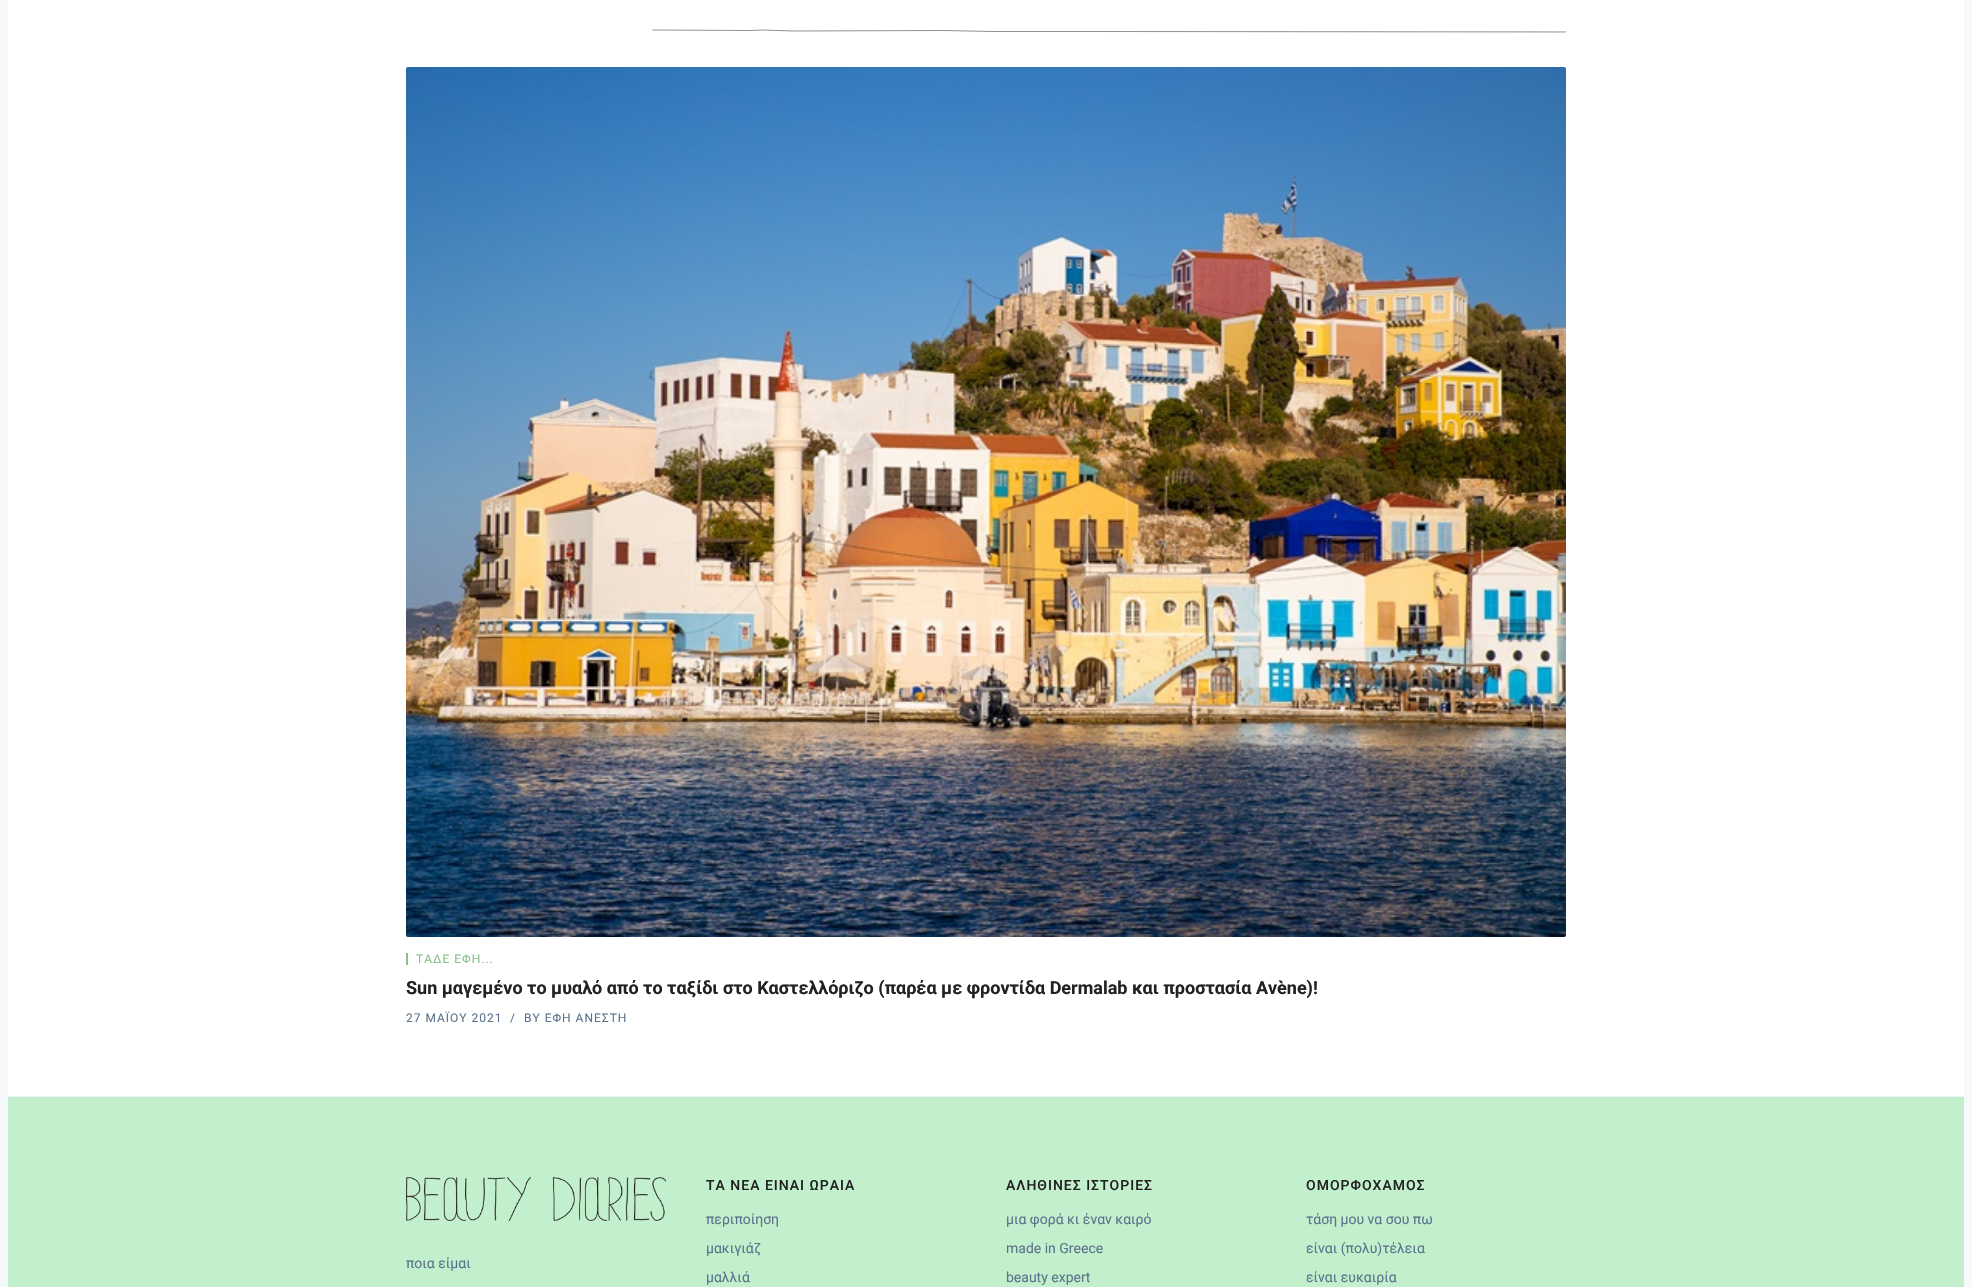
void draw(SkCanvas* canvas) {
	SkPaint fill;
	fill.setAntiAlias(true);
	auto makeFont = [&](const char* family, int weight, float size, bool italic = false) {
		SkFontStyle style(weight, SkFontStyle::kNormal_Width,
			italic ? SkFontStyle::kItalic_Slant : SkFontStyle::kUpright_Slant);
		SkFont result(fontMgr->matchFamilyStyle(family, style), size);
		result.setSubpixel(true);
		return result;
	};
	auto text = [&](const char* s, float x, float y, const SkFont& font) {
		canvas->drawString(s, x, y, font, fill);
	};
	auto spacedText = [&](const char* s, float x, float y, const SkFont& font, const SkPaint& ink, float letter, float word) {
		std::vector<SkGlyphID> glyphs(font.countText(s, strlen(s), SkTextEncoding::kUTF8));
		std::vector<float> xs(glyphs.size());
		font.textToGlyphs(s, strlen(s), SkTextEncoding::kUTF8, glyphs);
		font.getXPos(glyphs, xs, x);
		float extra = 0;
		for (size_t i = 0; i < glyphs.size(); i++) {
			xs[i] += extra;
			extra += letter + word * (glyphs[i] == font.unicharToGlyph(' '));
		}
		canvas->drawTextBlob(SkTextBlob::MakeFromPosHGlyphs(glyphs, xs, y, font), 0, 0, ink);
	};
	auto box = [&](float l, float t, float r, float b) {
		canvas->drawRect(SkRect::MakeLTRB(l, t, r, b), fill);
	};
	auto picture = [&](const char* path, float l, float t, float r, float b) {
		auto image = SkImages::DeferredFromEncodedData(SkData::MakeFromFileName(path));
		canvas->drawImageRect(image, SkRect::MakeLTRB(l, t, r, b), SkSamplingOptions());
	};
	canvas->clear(0xFFFFFFFF);
	fill.setStyle(SkPaint::kStroke_Style);
	fill.setStrokeWidth(8);
	fill.setColor(0xFFF6F9FC);
	canvas->drawRect(SkRect::MakeLTRB(4, -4, 1968, 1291), fill);
	canvas->save();
	canvas->clipRect(SkRect::MakeLTRB(632, 25, 1566, 35));
	fill.setStrokeWidth(0.5f);
	fill.setColor(0xFF231F20);
	canvas->drawPath(SkPathBuilder().moveTo(652.5f, 30).lineTo(750.5f, 30.5f).lineTo(762, 30).lineTo(793, 31).lineTo(943.5f, 30.5f).lineTo(992, 31.5f).lineTo(1094, 31.5f).lineTo(1612.5f, 32).detach(), fill);
	canvas->restore();
	fill.setStyle(SkPaint::kFill_Style);
	fill.setColor(0xFFF6F9FC);
	box(406, 67, 1566, 937);
	picture("image0.png", 406, 67, 1566, 937);
	fill.setColor(0xFF8BBF8B);
	box(406, 953, 408, 965);
	fill.setColor(0xFFC2EFCC);
	box(8, 1097, 1964, 1287);
	fill.setColor(0xFFEBF1F8);
	box(8, 1096, 1964, 1097);
	picture("image1.png", 406, 1177, 666, 1221);
	auto font1 = makeFont("Roboto", 400, 12);
	fill.setColor(0xFF8BBF8B);
	spacedText("ΤΑΔΕ ΕΦΗ...", 416, 963, font1, fill, 1, 0);
	auto font2 = makeFont("Roboto", 700, 18);
	fill.setColor(0xFF222222);
	text("Sun μαγεμένο το μυαλό από το ταξίδι στο Καστελλόριζο (παρέα με φροντίδα Dermalab και προστασία Avène)!", 406, 994, font2);
	fill.setColor(0xFF5D738D);
	spacedText("27 ΜΑΪΟΥ 2021", 406, 1022, font1, fill, 1, 0);
	spacedText("/", 510, 1022, font1, fill, 1, 0);
	spacedText("BY ΕΦΗ ΑΝΕΣΤΗ", 524, 1022, font1, fill, 1, 0);
	auto font3 = makeFont("Roboto", 400, 14);
	text("ποια είμαι", 406, 1268, font3);
	auto font4 = makeFont("Roboto", 500, 14);
	fill.setColor(0xFF222222);
	spacedText("ΤΑ ΝΕΑ ΕΙΝΑΙ ΩΡΑΙΑ", 706, 1190, font4, fill, 1, 0);
	fill.setColor(0xFF5D738D);
	text("περιποίηση", 706, 1224, font3);
	text("μακιγιάζ", 706, 1253, font3);
	text("μαλλιά", 706, 1282, font3);
	fill.setColor(0xFF222222);
	spacedText("ΑΛΗΘΙΝΕΣ ΙΣΤΟΡΙΕΣ", 1006, 1190, font4, fill, 1, 0);
	fill.setColor(0xFF5D738D);
	text("μια φορά κι έναν καιρό", 1006, 1224, font3);
	text("made in Greece", 1006, 1253, font3);
	text("beauty expert", 1006, 1282, font3);
	fill.setColor(0xFF222222);
	spacedText("ΟΜΟΡΦΟΧΑΜΟΣ", 1306, 1190, font4, fill, 1, 0);
	fill.setColor(0xFF5D738D);
	text("τάση μου να σου πω", 1306, 1224, font3);
	text("είναι (πολυ)τέλεια", 1306, 1253, font3);
	text("είναι ευκαιρία", 1306, 1282, font3);
}
